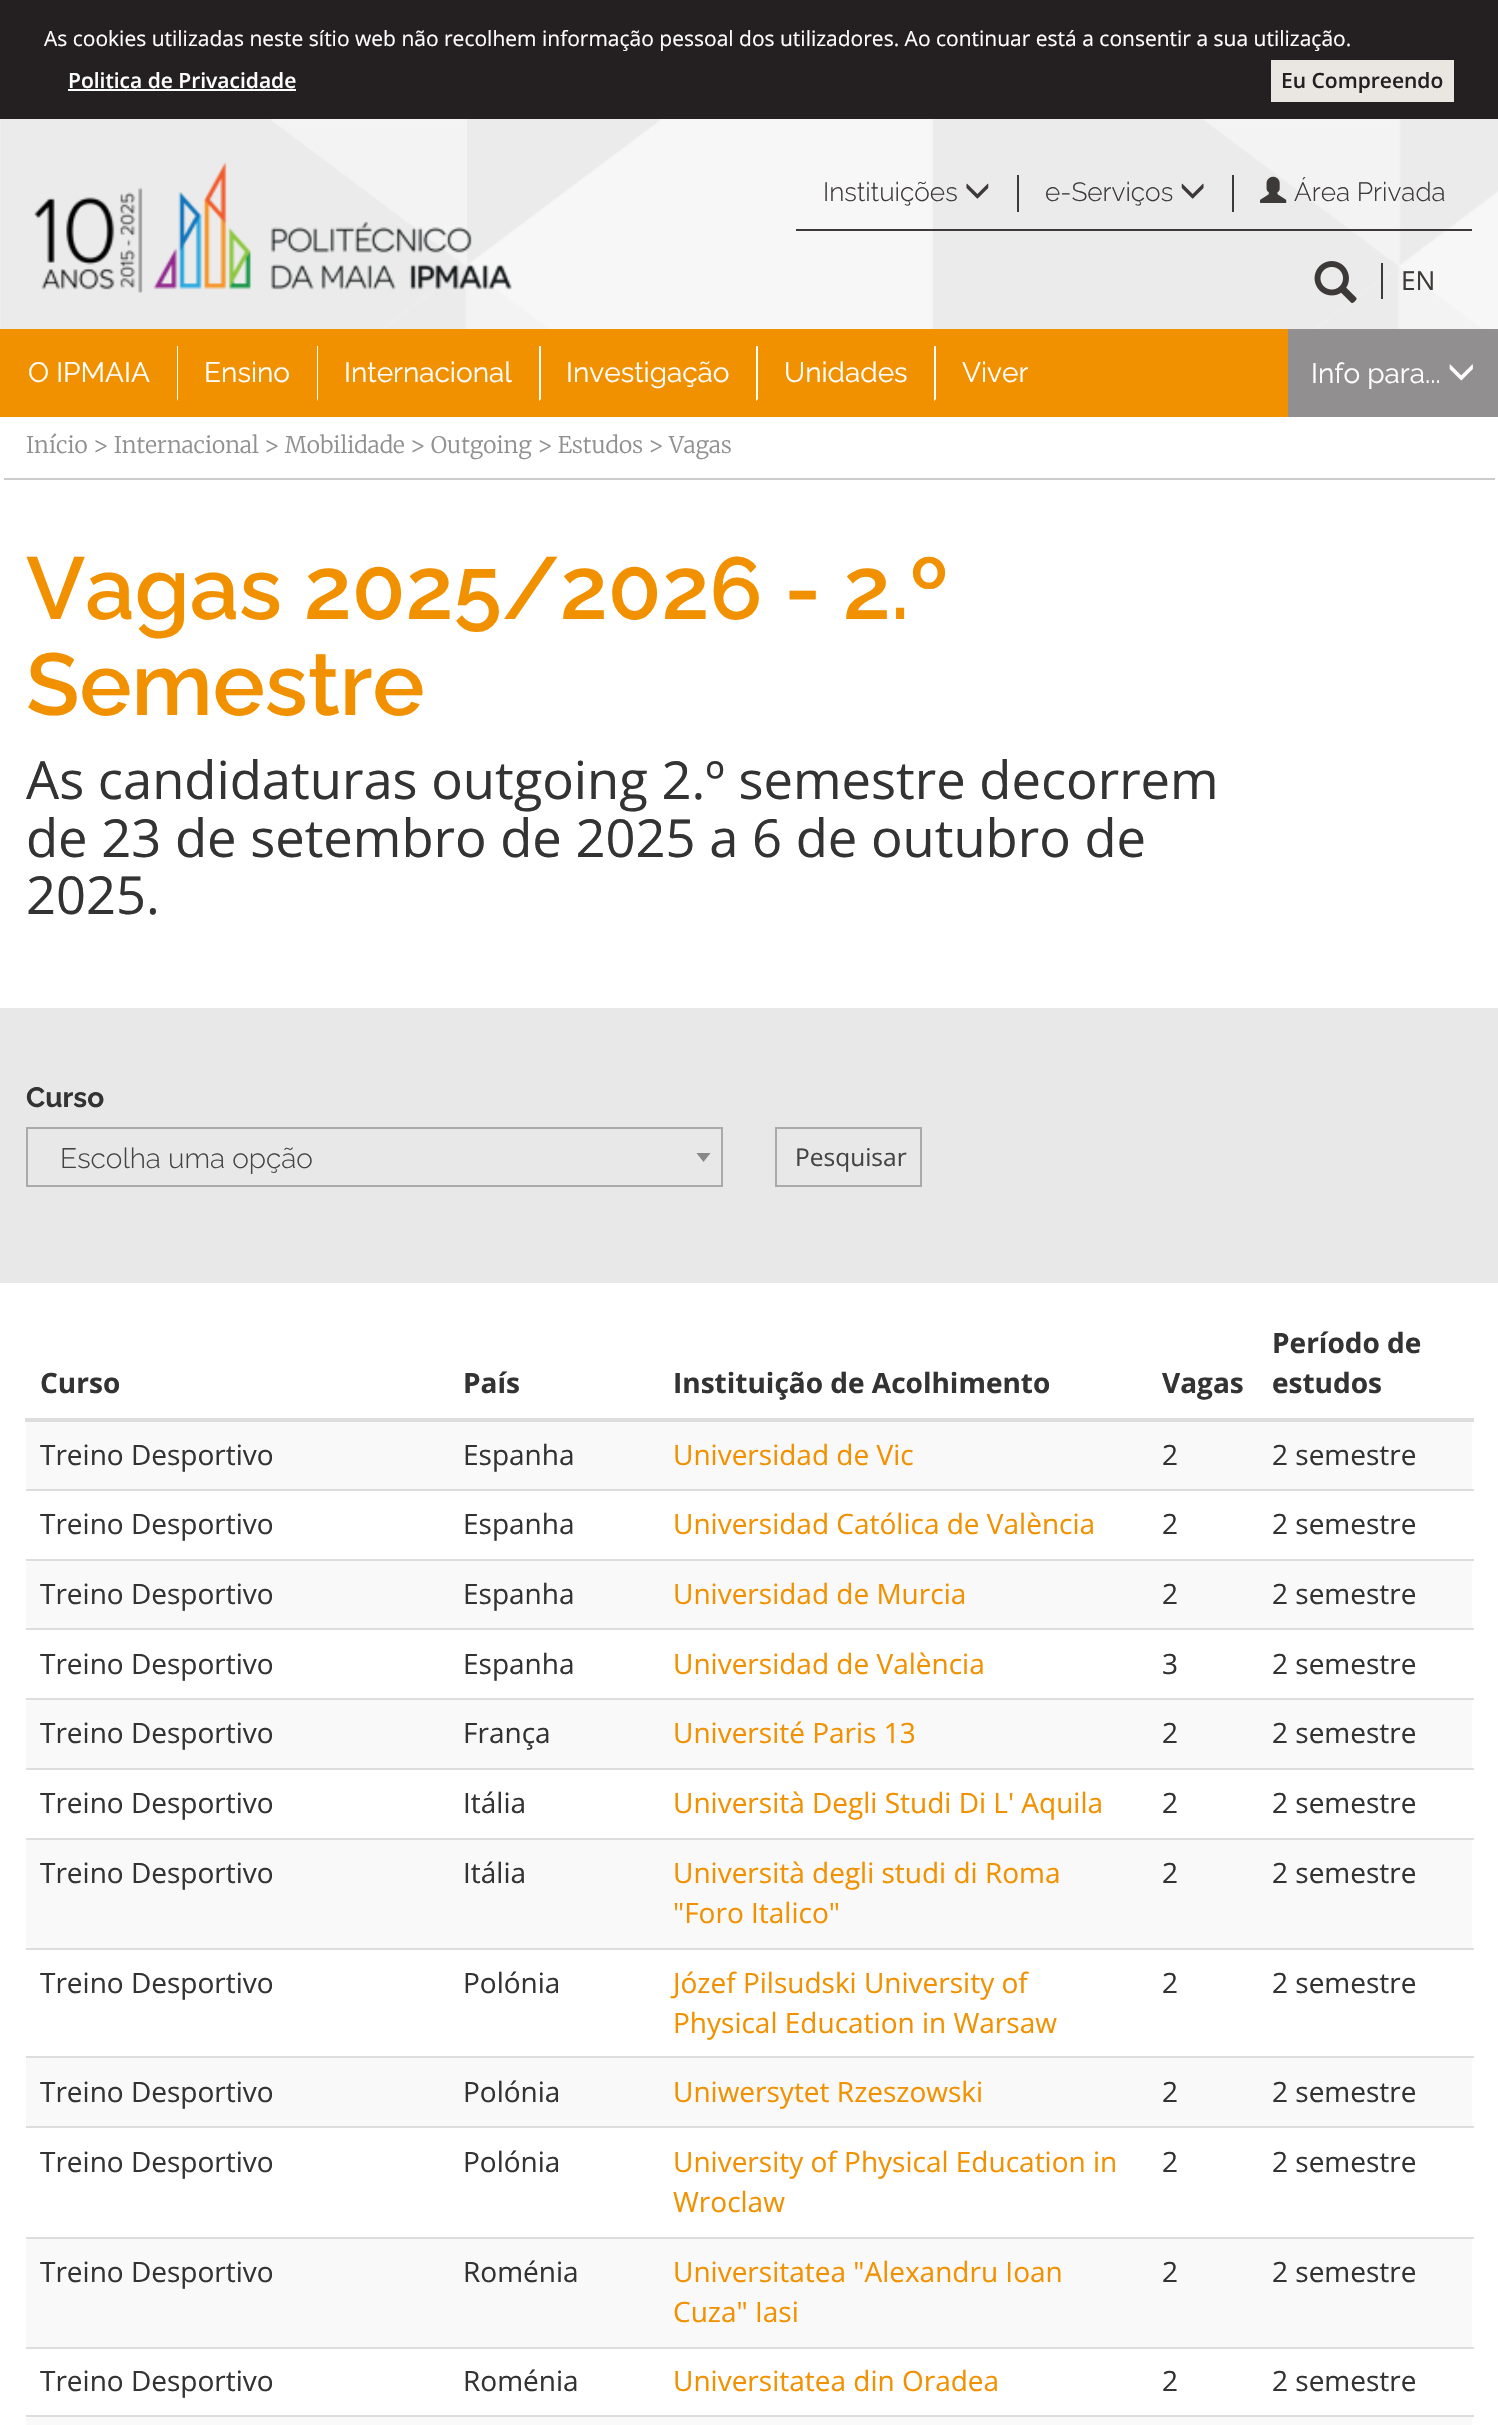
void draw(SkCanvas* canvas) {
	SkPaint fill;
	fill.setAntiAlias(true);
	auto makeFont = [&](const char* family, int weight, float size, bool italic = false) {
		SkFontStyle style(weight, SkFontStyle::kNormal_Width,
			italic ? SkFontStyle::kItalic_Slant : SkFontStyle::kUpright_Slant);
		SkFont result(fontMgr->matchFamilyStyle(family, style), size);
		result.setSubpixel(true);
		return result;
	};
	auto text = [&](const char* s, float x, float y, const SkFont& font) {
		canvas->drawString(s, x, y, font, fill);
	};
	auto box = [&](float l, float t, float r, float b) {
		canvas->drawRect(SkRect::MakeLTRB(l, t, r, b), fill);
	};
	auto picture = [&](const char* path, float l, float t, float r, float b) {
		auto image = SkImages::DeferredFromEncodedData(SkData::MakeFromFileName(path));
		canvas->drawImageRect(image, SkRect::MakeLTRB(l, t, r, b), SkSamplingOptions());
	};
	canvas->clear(0xFFFFFFFF);
	fill.setColor(0xFF242021);
	box(0, 0, 1498, 119);
	fill.setColor(0xFFFFFFFF);
	box(68, 89, 296, 91);
	fill.setColor(0xFFEAE7E3);
	box(1271, 60, 1454, 102);
	picture("image0.png", 0, 119, 1498, 329);
	picture("image1.png", 34, 162, 512, 293);
	fill.setColor(0xFF3D3938);
	box(796, 229, 1472, 231);
	box(1017, 175, 1019, 212);
	picture("image2.png", 966, 183, 989, 199);
	box(1232, 175, 1234, 212);
	picture("image3.png", 1181, 183, 1204, 199);
	picture("image4.png", 1260, 176, 1287, 203);
	picture("image5.png", 1314, 261, 1357, 303);
	box(1381, 263, 1383, 299);
	fill.setColor(0xFFF29100);
	box(0, 329, 1288, 417);
	fill.setColor(0xFFFFFFFF);
	canvas->drawPath(SkPathBuilder().moveTo(177, 401).lineTo(177, 346).lineTo(178, 346).lineTo(178, 399).close().detach(), fill);
	canvas->drawPath(SkPathBuilder().moveTo(317, 401).lineTo(317, 346).lineTo(318, 346).lineTo(318, 399).close().detach(), fill);
	canvas->drawPath(SkPathBuilder().moveTo(539, 401).lineTo(539, 346).lineTo(541, 346).lineTo(541, 399).close().detach(), fill);
	canvas->drawPath(SkPathBuilder().moveTo(756, 401).lineTo(756, 346).lineTo(758, 346).lineTo(758, 399).close().detach(), fill);
	canvas->drawPath(SkPathBuilder().moveTo(934, 401).lineTo(934, 346).lineTo(936, 346).lineTo(936, 399).close().detach(), fill);
	fill.setColor(0xFF918F8F);
	box(1288, 329, 1498, 417);
	picture("image6.png", 1449, 364, 1473, 381);
	fill.setColor(0xFFCCCCCC);
	box(4, 478, 1495, 480);
	fill.setColor(0xFFE9E8E8);
	box(0, 1008, 1498, 1283);
	fill.setStyle(SkPaint::kStroke_Style);
	fill.setStrokeWidth(2);
	fill.setColor(0xFFAAAAAA);
	canvas->drawRect(SkRect::MakeLTRB(27, 1128, 722, 1186), fill);
	fill.setStyle(SkPaint::kFill_Style);
	fill.setColor(0xFF888888);
	canvas->drawPath(SkPathBuilder().moveTo(696.5f, 1153).lineTo(710.5f, 1153).lineTo(703.5f, 1162).close().detach(), fill);
	fill.setStyle(SkPaint::kStroke_Style);
	fill.setColor(0xFFAAAAAA);
	canvas->drawRect(SkRect::MakeLTRB(776, 1128, 921, 1186), fill);
	fill.setStyle(SkPaint::kFill_Style);
	fill.setColor(0xFFDDDDDD);
	box(25, 1418, 1474, 1422);
	fill.setColor(0xFFF9F9F9);
	box(26, 1422, 1472, 1489);
	fill.setColor(0xFFDDDDDD);
	box(26, 1489, 1474, 1491);
	fill.setColor(0xFFF9F9F9);
	box(26, 1561, 1472, 1628);
	fill.setColor(0xFFDDDDDD);
	box(26, 1559, 1474, 1561);
	box(26, 1628, 1474, 1630);
	fill.setColor(0xFFF9F9F9);
	box(26, 1700, 1472, 1768);
	fill.setColor(0xFFDDDDDD);
	box(26, 1698, 1474, 1700);
	box(26, 1768, 1474, 1770);
	fill.setColor(0xFFF9F9F9);
	box(26, 1840, 1472, 1948);
	fill.setColor(0xFFDDDDDD);
	box(26, 1838, 1474, 1840);
	box(26, 1948, 1474, 1950);
	fill.setColor(0xFFF9F9F9);
	box(26, 2058, 1472, 2126);
	fill.setColor(0xFFDDDDDD);
	box(26, 2056, 1474, 2058);
	box(26, 2126, 1474, 2128);
	fill.setColor(0xFFF9F9F9);
	box(26, 2239, 1472, 2347);
	fill.setColor(0xFFDDDDDD);
	box(26, 2237, 1474, 2239);
	box(26, 2347, 1474, 2349);
	fill.setColor(0xFFF9F9F9);
	box(26, 2417, 1472, 2425);
	fill.setColor(0xFFDDDDDD);
	box(26, 2415, 1474, 2417);
	auto font1 = makeFont("Open Sans", 400, 21);
	fill.setColor(0xFFFFFFFF);
	text("As cookies utilizadas neste sítio web não recolhem informação pessoal dos utilizadores. Ao continuar está a consentir a sua utilização.", 44, 46, font1);
	auto font2 = makeFont("Open Sans", 600, 21);
	text("Politica de Privacidade", 68, 88, font2);
	fill.setColor(0xFF242021);
	text("Eu Compreendo", 1281, 88, font2);
	auto font3 = makeFont("Raleway", 300, 26.25f);
	fill.setColor(0xFF3D3938);
	text("Instituições", 823, 201, font3);
	text("e-Serviços", 1045, 201, font3);
	text("Área Privada", 1294, 201, font3);
	auto font4 = makeFont("Open Sans", 400, 26.25f);
	text("EN", 1401, 290, font4);
	auto font5 = makeFont("Raleway", 400, 28);
	fill.setColor(0xFFFFFFFF);
	text("O IPMAIA", 28, 382, font5);
	text("Ensino", 204, 382, font5);
	text("Internacional", 344, 382, font5);
	text("Investigação", 566, 382, font5);
	text("Unidades", 784, 382, font5);
	text("Viver", 962, 382, font5);
	text("Info para...", 1311, 383, font5);
	auto font6 = makeFont("Merriweather", 300, 22.75f);
	fill.setColor(0xFF918F8F);
	text("Início > Internacional > Mobilidade > Outgoing > Estudos > Vagas", 26, 453, font6);
	auto font7 = makeFont("Raleway", 600, 87.5f);
	fill.setColor(0xFFF29100);
	text("Vagas 2025/2026 - 2.º", 26, 619, font7);
	text("Semestre", 26, 715, font7);
	auto font8 = makeFont("Open Sans", 400, 52.5f);
	fill.setColor(0xFF333333);
	text("As candidaturas outgoing 2.º semestre decorrem", 26, 799, font8);
	text("de 23 de setembro de 2025 a 6 de outubro de", 26, 857, font8);
	text("2025.", 26, 914, font8);
	auto font9 = makeFont("Raleway", 700, 28);
	text("Curso", 26, 1107, font9);
	auto font10 = makeFont("Raleway", 300, 28);
	fill.setColor(0xFF444444);
	text("Escolha uma opção", 60, 1168, font10);
	auto font11 = makeFont("Open Sans", 400, 24.5f);
	text("Pesquisar", 795, 1166, font11);
	auto font12 = makeFont("Open Sans", 700, 28);
	fill.setColor(0xFF333333);
	text("Curso", 40, 1393, font12);
	text("País", 463, 1393, font12);
	text("Instituição de Acolhimento", 673, 1393, font12);
	text("Vagas", 1162, 1393, font12);
	text("Período de", 1272, 1353, font12);
	text("estudos", 1272, 1393, font12);
	auto font13 = makeFont("Open Sans", 400, 28);
	text("Treino Desportivo", 40, 1465, font13);
	text("Espanha", 463, 1465, font13);
	fill.setColor(0xFFF29100);
	text("Universidad de Vic", 673, 1465, font13);
	fill.setColor(0xFF333333);
	text("2", 1162, 1465, font13);
	text("2 semestre", 1272, 1465, font13);
	text("Treino Desportivo", 40, 1534, font13);
	text("Espanha", 463, 1534, font13);
	fill.setColor(0xFFF29100);
	text("Universidad Católica de València", 673, 1534, font13);
	fill.setColor(0xFF333333);
	text("2", 1162, 1534, font13);
	text("2 semestre", 1272, 1534, font13);
	text("Treino Desportivo", 40, 1604, font13);
	text("Espanha", 463, 1604, font13);
	fill.setColor(0xFFF29100);
	text("Universidad de Murcia", 673, 1604, font13);
	fill.setColor(0xFF333333);
	text("2", 1162, 1604, font13);
	text("2 semestre", 1272, 1604, font13);
	text("Treino Desportivo", 40, 1674, font13);
	text("Espanha", 463, 1674, font13);
	fill.setColor(0xFFF29100);
	text("Universidad de València", 673, 1674, font13);
	fill.setColor(0xFF333333);
	text("3", 1162, 1674, font13);
	text("2 semestre", 1272, 1674, font13);
	text("Treino Desportivo", 40, 1743, font13);
	text("França", 463, 1743, font13);
	fill.setColor(0xFFF29100);
	text("Université Paris 13", 673, 1743, font13);
	fill.setColor(0xFF333333);
	text("2", 1162, 1743, font13);
	text("2 semestre", 1272, 1743, font13);
	text("Treino Desportivo", 40, 1813, font13);
	text("Itália", 463, 1813, font13);
	fill.setColor(0xFFF29100);
	text("Università Degli Studi Di L' Aquila", 673, 1813, font13);
	fill.setColor(0xFF333333);
	text("2", 1162, 1813, font13);
	text("2 semestre", 1272, 1813, font13);
	text("Treino Desportivo", 40, 1883, font13);
	text("Itália", 463, 1883, font13);
	fill.setColor(0xFFF29100);
	text("Università degli studi di Roma", 673, 1883, font13);
	text("\"Foro Italico\"", 673, 1923, font13);
	fill.setColor(0xFF333333);
	text("2", 1162, 1883, font13);
	text("2 semestre", 1272, 1883, font13);
	text("Treino Desportivo", 40, 1993, font13);
	text("Polónia", 463, 1993, font13);
	fill.setColor(0xFFF29100);
	text("Józef Pilsudski University of", 673, 1993, font13);
	text("Physical Education in Warsaw", 673, 2033, font13);
	fill.setColor(0xFF333333);
	text("2", 1162, 1993, font13);
	text("2 semestre", 1272, 1993, font13);
	text("Treino Desportivo", 40, 2102, font13);
	text("Polónia", 463, 2102, font13);
	fill.setColor(0xFFF29100);
	text("Uniwersytet Rzeszowski", 673, 2102, font13);
	fill.setColor(0xFF333333);
	text("2", 1162, 2102, font13);
	text("2 semestre", 1272, 2102, font13);
	text("Treino Desportivo", 40, 2172, font13);
	text("Polónia", 463, 2172, font13);
	fill.setColor(0xFFF29100);
	text("University of Physical Education in", 673, 2172, font13);
	text("Wroclaw", 673, 2212, font13);
	fill.setColor(0xFF333333);
	text("2", 1162, 2172, font13);
	text("2 semestre", 1272, 2172, font13);
	text("Treino Desportivo", 40, 2282, font13);
	text("Roménia", 463, 2282, font13);
	fill.setColor(0xFFF29100);
	text("Universitatea \"Alexandru Ioan", 673, 2282, font13);
	text("Cuza\" Iasi", 673, 2322, font13);
	fill.setColor(0xFF333333);
	text("2", 1162, 2282, font13);
	text("2 semestre", 1272, 2282, font13);
	text("Treino Desportivo", 40, 2391, font13);
	text("Roménia", 463, 2391, font13);
	fill.setColor(0xFFF29100);
	text("Universitatea din Oradea", 673, 2391, font13);
	fill.setColor(0xFF333333);
	text("2", 1162, 2391, font13);
	text("2 semestre", 1272, 2391, font13);
}
